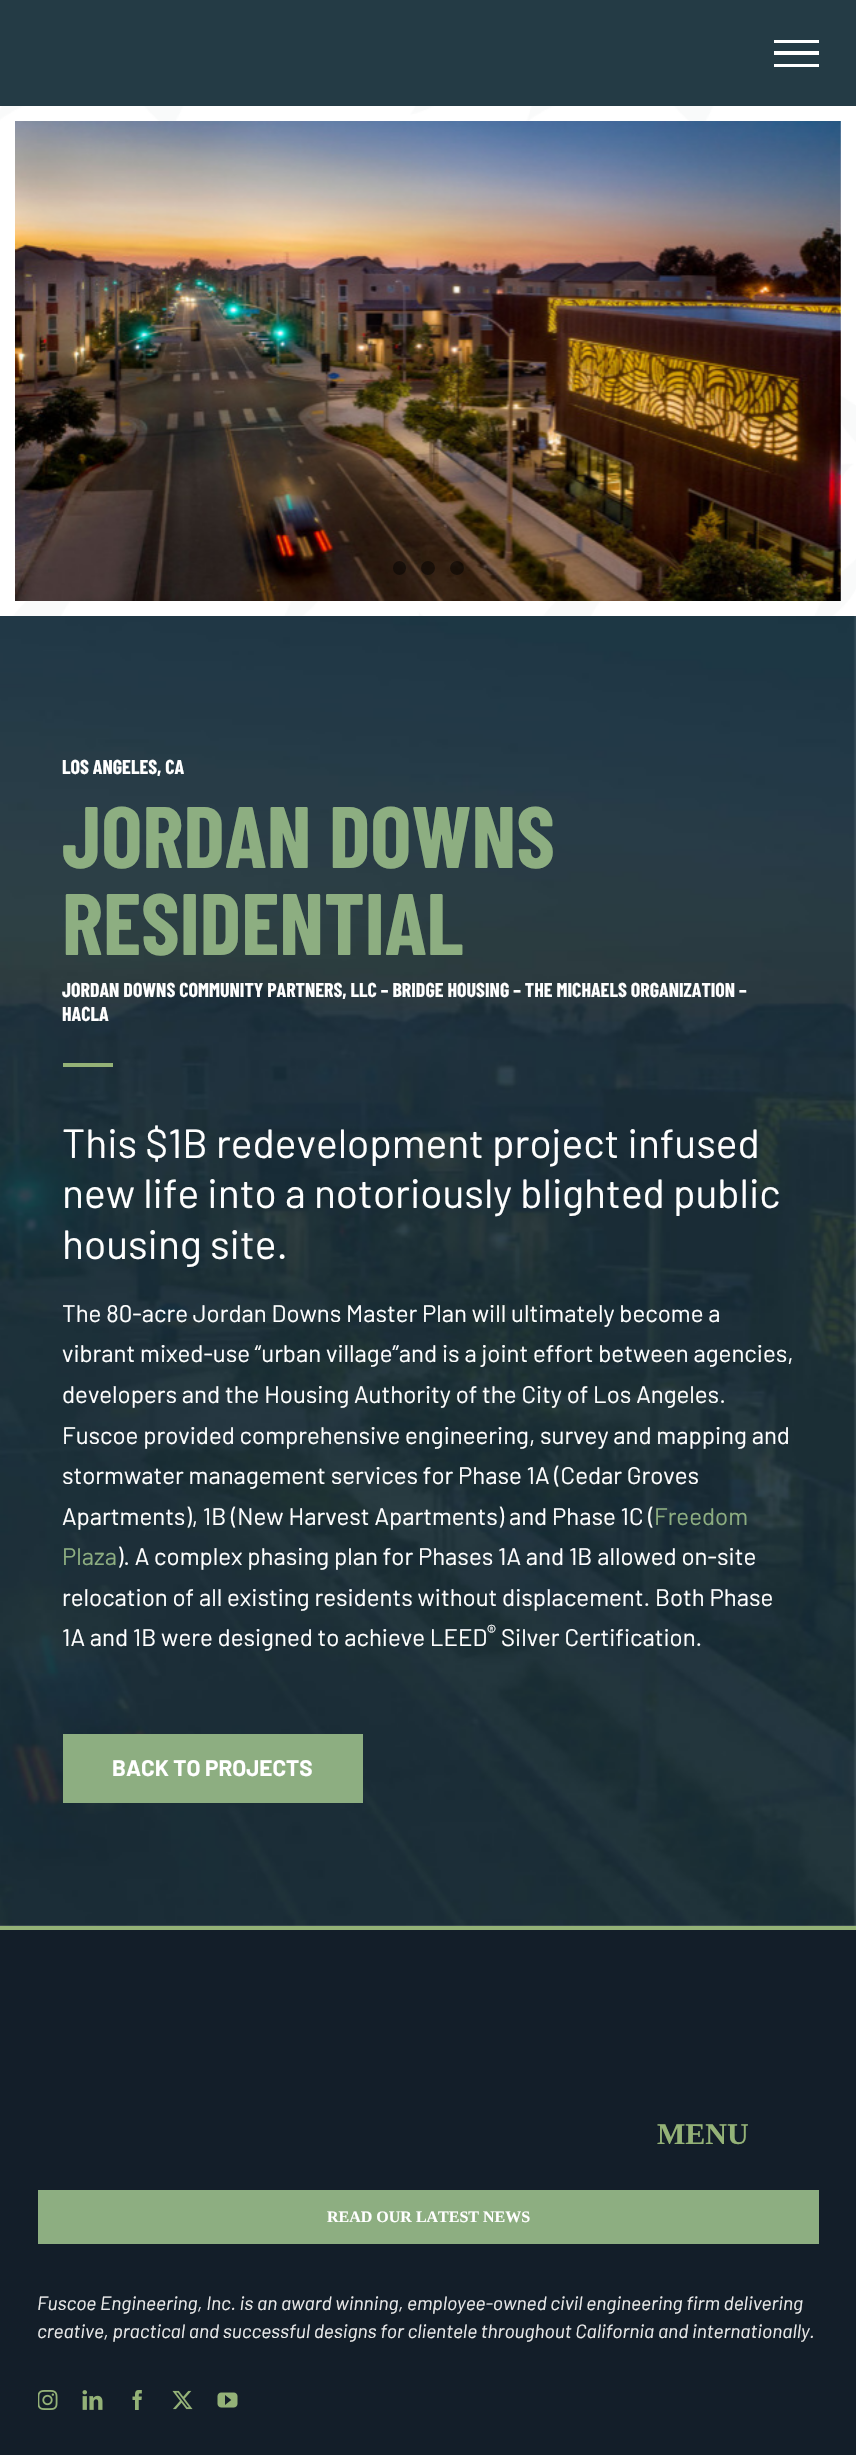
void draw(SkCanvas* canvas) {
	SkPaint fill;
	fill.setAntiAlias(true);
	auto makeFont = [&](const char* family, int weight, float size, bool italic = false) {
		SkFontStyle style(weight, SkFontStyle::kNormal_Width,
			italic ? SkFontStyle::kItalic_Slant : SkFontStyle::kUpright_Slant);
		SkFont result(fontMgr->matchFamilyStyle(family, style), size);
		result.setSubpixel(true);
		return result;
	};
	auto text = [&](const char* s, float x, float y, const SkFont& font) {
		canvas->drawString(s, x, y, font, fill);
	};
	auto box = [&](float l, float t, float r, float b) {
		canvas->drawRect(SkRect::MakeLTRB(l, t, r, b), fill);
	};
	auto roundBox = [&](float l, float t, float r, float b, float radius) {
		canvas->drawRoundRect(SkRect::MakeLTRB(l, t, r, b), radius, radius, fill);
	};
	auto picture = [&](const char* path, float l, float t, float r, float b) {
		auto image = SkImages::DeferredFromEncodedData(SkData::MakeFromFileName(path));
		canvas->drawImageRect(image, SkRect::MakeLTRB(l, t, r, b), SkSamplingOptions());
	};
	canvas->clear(0xFFFFFFFF);
	picture("image0.png", 0, 0, 856, 1926);
	fill.setColor(0xF218303B);
	box(0, 0, 856, 106);
	fill.setColor(0xFFFFFFFF);
	box(774, 40, 819, 43);
	box(774, 51, 819, 55);
	box(774, 64, 819, 67);
	picture("image1.png", 15, 121, 841, 601);
	fill.setColor(0x80000000);
	roundBox(393, 561, 406, 575, 6.5f);
	canvas->drawCircle(428, 568, 7, fill);
	canvas->drawCircle(457, 568, 7, fill);
	picture("image2.png", 0, 616, 856, 1926);
	fill.setColor(0xFF94B277);
	box(63, 1063, 113, 1067);
	fill.setColor(0xFF8DAE81);
	box(63, 1734, 363, 1803);
	fill.setColor(0xFF131E29);
	box(0, 1930, 856, 2455);
	fill.setColor(0xFF94B277);
	box(0, 1926, 856, 1930);
	fill.setColor(0xFF8DAE81);
	box(38, 2190, 819, 2244);
	picture("image3.png", 38, 2390, 58, 2410);
	picture("image4.png", 82, 2390, 103, 2410);
	picture("image5.png", 132, 2390, 142, 2410);
	picture("image6.png", 172, 2390, 193, 2410);
	picture("image7.png", 217, 2392, 238, 2408);
	auto font1 = makeFont("Barlow Condensed", 700, 20);
	fill.setColor(0xFFFFFFFF);
	text("LOS ANGELES, CA", 62, 774, font1);
	auto font2 = makeFont("Barlow Condensed", 700, 87);
	fill.setColor(0xFF8DAE81);
	text("JORDAN DOWNS", 62, 868, font2);
	text("RESIDENTIAL", 62, 955, font2);
	fill.setColor(0xFFFFFFFF);
	text("JORDAN DOWNS COMMUNITY PARTNERS, LLC – BRIDGE HOUSING – THE MICHAELS ORGANIZATION –", 62, 997, font1);
	text("HACLA", 62, 1021, font1);
	auto font3 = makeFont("Barlow", 400, 40.75f);
	text("This $1B redevelopment project infused", 62, 1158, font3);
	text("new life into a notoriously blighted public", 62, 1208, font3);
	text("housing site.", 62, 1259, font3);
	auto font4 = makeFont("Barlow", 400, 24);
	text("The 80-acre Jordan Downs Master Plan will ultimately become a", 62, 1322, font4);
	text("vibrant mixed-use “urban village”and is a joint effort between agencies,", 62, 1362, font4);
	text("developers and the Housing Authority of the City of Los Angeles.", 62, 1403, font4);
	text("Fuscoe provided comprehensive engineering, survey and mapping and", 62, 1444, font4);
	text("stormwater management services for Phase 1A (Cedar Groves", 62, 1484, font4);
	text("Apartments), 1B (New Harvest Apartments) and Phase 1C (", 62, 1525, font4);
	fill.setColor(0xFF8DAE81);
	text("Freedom", 654, 1525, font4);
	text("Plaza", 62, 1565, font4);
	fill.setColor(0xFFFFFFFF);
	text("). A complex phasing plan for Phases 1A and 1B allowed on-site", 117, 1565, font4);
	text("relocation of all existing residents without displacement. Both Phase", 62, 1606, font4);
	text("1A and 1B were designed to achieve LEED", 62, 1646, font4);
	auto font5 = makeFont("Barlow", 400, 20);
	text("®", 487, 1639, font5);
	text("Silver Certification.", 501, 1646, font4);
	auto font6 = makeFont("Barlow", 700, 22.5f);
	text("BACK TO PROJECTS", 112, 1776, font6);
	auto font7 = makeFont("Liberation Serif", 700, 30);
	fill.setColor(0xFF94B277);
	text("MENU", 657, 2144, font7);
	auto font8 = makeFont("Liberation Serif", 700, 16);
	fill.setColor(0xFFFFFFFF);
	text("READ OUR LATEST NEWS", 327, 2222, font8);
	auto font9 = makeFont("Barlow", 400, 19.2f, true);
	fill.setColor(0xFFEAEAEA);
	text("Fuscoe Engineering, Inc. is an award winning, employee-owned civil engineering firm delivering", 37, 2310, font9);
	text("creative, practical and successful designs for clientele throughout California and internationally.", 37, 2338, font9);
}
